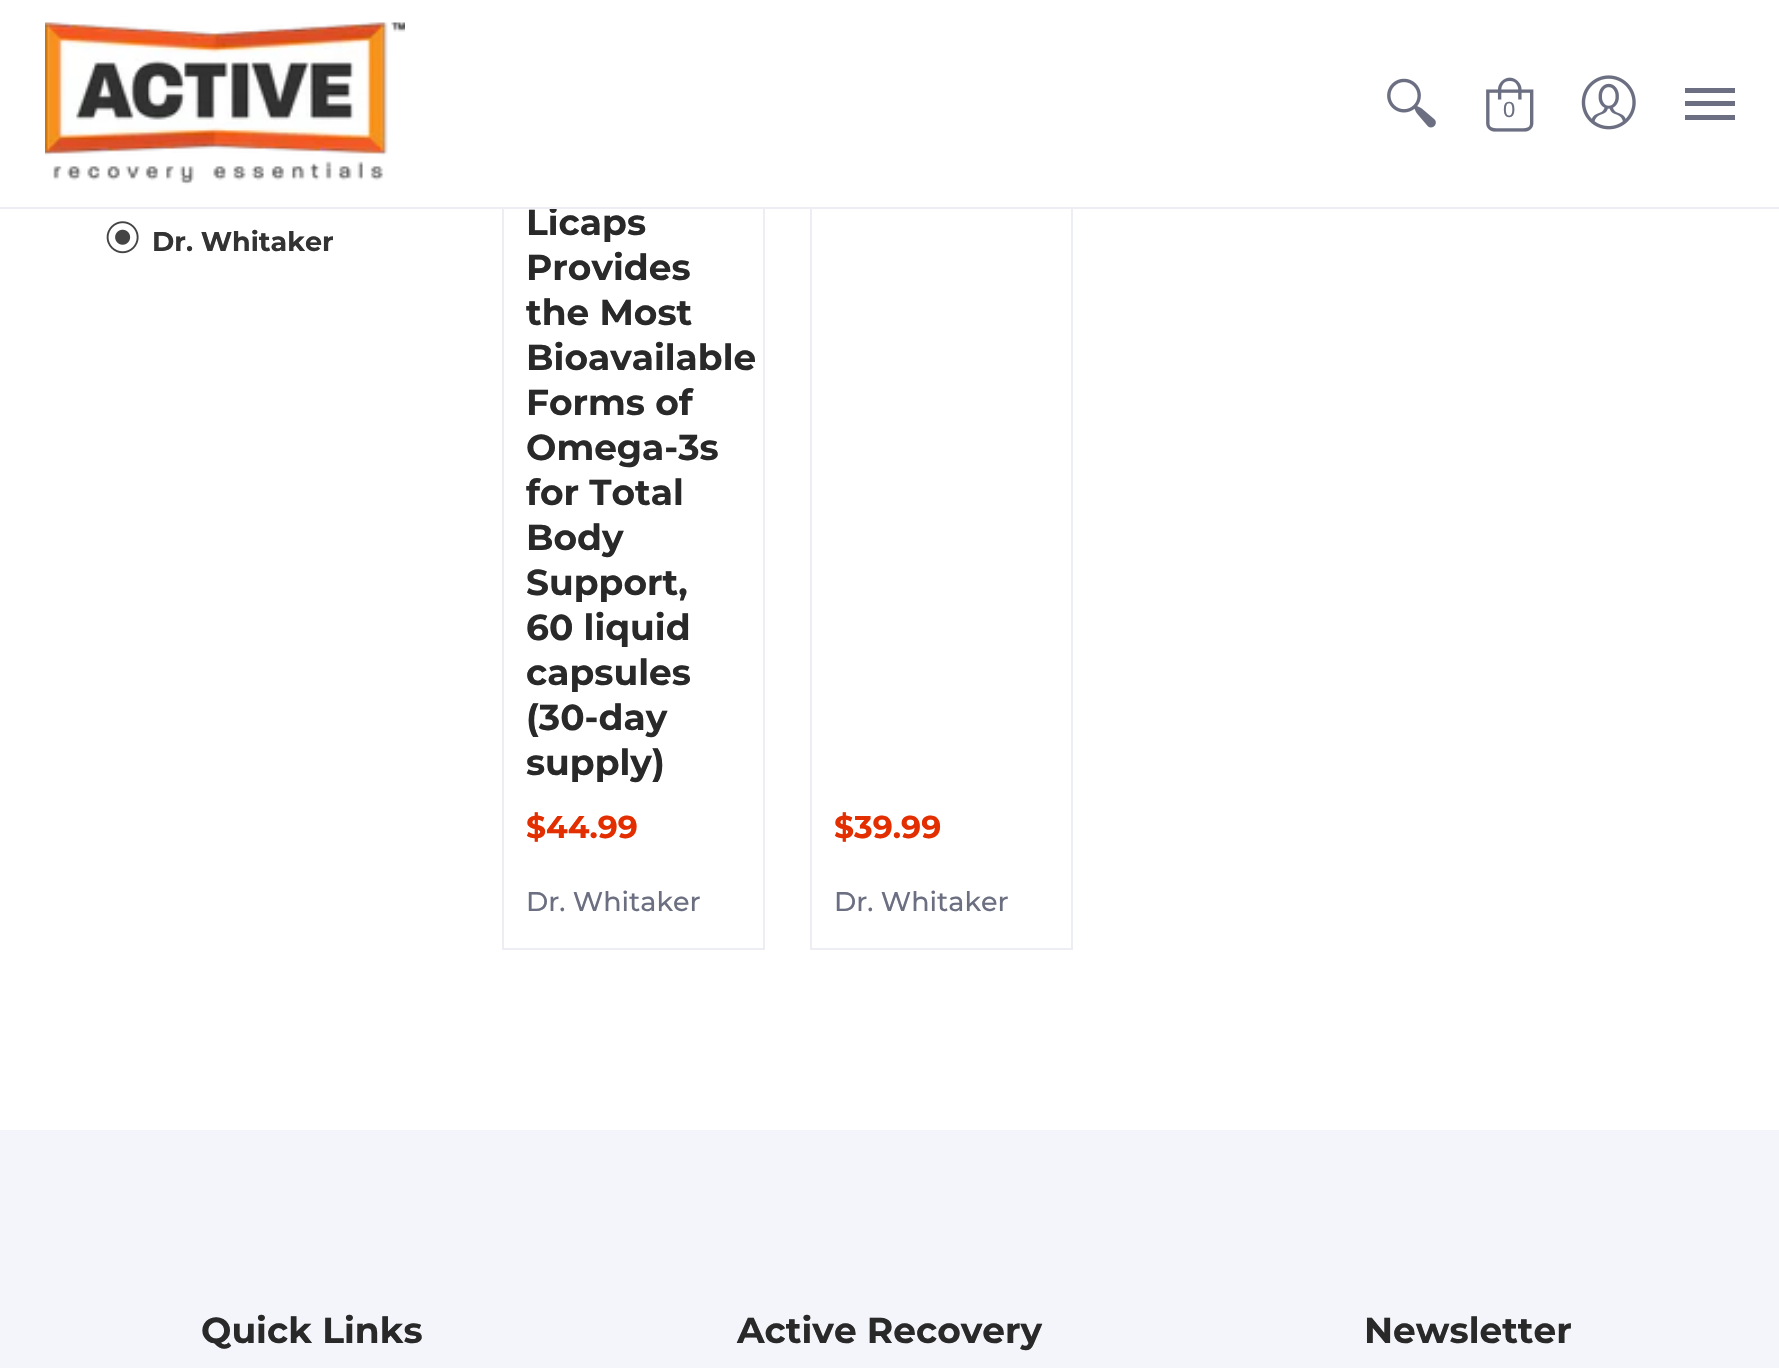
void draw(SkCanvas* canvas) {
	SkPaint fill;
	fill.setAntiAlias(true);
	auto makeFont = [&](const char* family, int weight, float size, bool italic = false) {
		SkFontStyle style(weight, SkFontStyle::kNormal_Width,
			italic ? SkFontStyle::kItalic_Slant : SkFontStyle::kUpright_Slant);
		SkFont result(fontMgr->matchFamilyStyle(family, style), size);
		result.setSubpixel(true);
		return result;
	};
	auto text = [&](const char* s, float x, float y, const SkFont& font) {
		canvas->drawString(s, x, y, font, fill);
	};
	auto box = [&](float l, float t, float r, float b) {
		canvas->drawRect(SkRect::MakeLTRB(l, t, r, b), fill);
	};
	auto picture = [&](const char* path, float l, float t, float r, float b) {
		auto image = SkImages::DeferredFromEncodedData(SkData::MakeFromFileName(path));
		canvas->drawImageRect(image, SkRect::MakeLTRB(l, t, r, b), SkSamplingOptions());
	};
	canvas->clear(0xFFFFFFFF);
	picture("image0.png", 45, 22, 405, 185);
	picture("image1.png", 1387, 78, 1436, 128);
	picture("image2.png", 1486, 77, 1534, 132);
	picture("image3.png", 1581, 75, 1636, 130);
	fill.setColor(0xFF6B6F81);
	box(1685, 88, 1735, 93);
	box(1685, 115, 1735, 120);
	box(1685, 101, 1735, 106);
	picture("image4.png", 106, 221, 139, 254);
	fill.setStyle(SkPaint::kStroke_Style);
	fill.setStrokeWidth(2);
	fill.setColor(0xFFEDEEF4);
	canvas->drawRect(SkRect::MakeLTRB(503, -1, 764, 949), fill);
	canvas->drawRect(SkRect::MakeLTRB(811, -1, 1072, 949), fill);
	fill.setStyle(SkPaint::kFill_Style);
	fill.setColor(0xFFF4F5FA);
	box(0, 1130, 1779, 1368);
	auto font1 = makeFont("Liberation Sans", 400, 22);
	fill.setColor(0xFF6B6F81);
	text("0", 1503, 117, font1);
	auto font2 = makeFont("Montserrat", 700, 27);
	fill.setColor(0xFF333333);
	text("Dr. Whitaker", 152, 251, font2);
	auto font3 = makeFont("Montserrat", 700, 36);
	fill.setColor(0xFF292929);
	text("Licaps", 526, 235, font3);
	fill.setColor(0xFFEDEEF4);
	box(0, 207, 1779, 209);
	fill.setColor(0xFFFFFFFF);
	box(502, 0, 1073, 207);
	fill.setColor(0xFF292929);
	text("Provides", 526, 280, font3);
	text("the Most", 526, 325, font3);
	text("Bioavailable", 526, 370, font3);
	text("Forms of", 526, 415, font3);
	text("Omega-3s", 526, 460, font3);
	text("for Total", 526, 505, font3);
	text("Body", 526, 550, font3);
	text("Support,", 526, 595, font3);
	text("60 liquid", 526, 640, font3);
	text("capsules", 526, 685, font3);
	text("(30-day", 526, 730, font3);
	text("supply)", 526, 775, font3);
	auto font4 = makeFont("Montserrat", 700, 31.5f);
	fill.setColor(0xFFE32E00);
	text("$44.99", 526, 838, font4);
	auto font5 = makeFont("Montserrat", 500, 27);
	fill.setColor(0xFF6B6F81);
	text("Dr. Whitaker", 526, 911, font5);
	fill.setColor(0xFFE32E00);
	text("$39.99", 834, 838, font4);
	fill.setColor(0xFF6B6F81);
	text("Dr. Whitaker", 834, 911, font5);
	fill.setColor(0xFF292929);
	text("Quick Links", 201, 1343, font3);
	text("Active Recovery", 737, 1343, font3);
	text("Newsletter", 1364, 1343, font3);
}
